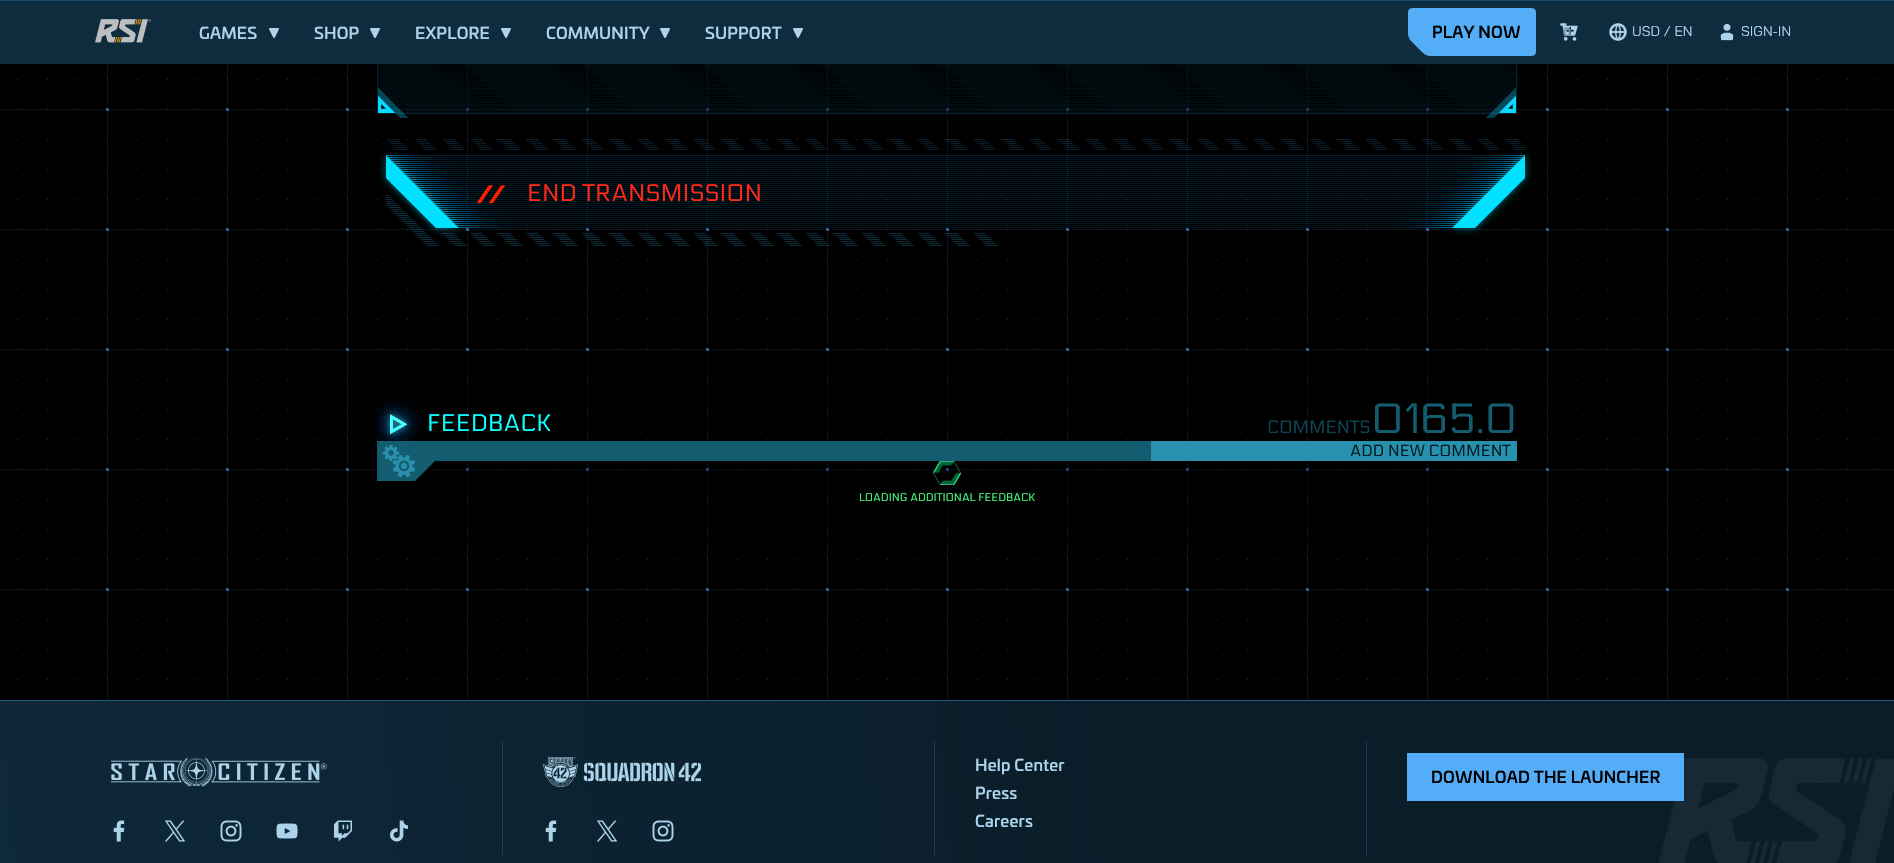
void draw(SkCanvas* canvas) {
	SkPaint fill;
	fill.setAntiAlias(true);
	auto makeFont = [&](const char* family, int weight, float size, bool italic = false) {
		SkFontStyle style(weight, SkFontStyle::kNormal_Width,
			italic ? SkFontStyle::kItalic_Slant : SkFontStyle::kUpright_Slant);
		SkFont result(fontMgr->matchFamilyStyle(family, style), size);
		result.setSubpixel(true);
		return result;
	};
	auto text = [&](const char* s, float x, float y, const SkFont& font) {
		canvas->drawString(s, x, y, font, fill);
	};
	auto spacedText = [&](const char* s, float x, float y, const SkFont& font, const SkPaint& ink, float letter, float word) {
		std::vector<SkGlyphID> glyphs(font.countText(s, strlen(s), SkTextEncoding::kUTF8));
		std::vector<float> xs(glyphs.size());
		font.textToGlyphs(s, strlen(s), SkTextEncoding::kUTF8, glyphs);
		font.getXPos(glyphs, xs, x);
		float extra = 0;
		for (size_t i = 0; i < glyphs.size(); i++) {
			xs[i] += extra;
			extra += letter + word * (glyphs[i] == font.unicharToGlyph(' '));
		}
		canvas->drawTextBlob(SkTextBlob::MakeFromPosHGlyphs(glyphs, xs, y, font), 0, 0, ink);
	};
	auto box = [&](float l, float t, float r, float b) {
		canvas->drawRect(SkRect::MakeLTRB(l, t, r, b), fill);
	};
	auto picture = [&](const char* path, float l, float t, float r, float b) {
		auto image = SkImages::DeferredFromEncodedData(SkData::MakeFromFileName(path));
		canvas->drawImageRect(image, SkRect::MakeLTRB(l, t, r, b), SkSamplingOptions());
	};
	canvas->clear(0xFF000000);
	fill.setColor(0xFF0F2C3E);
	box(0, 1, 1894, 64);
	fill.setColor(0xFF194967);
	box(0, 0, 1894, 1);
	picture("image0.png", 95, 19, 151, 43);
	picture("image1.png", 269, 28, 279, 38);
	picture("image1.png", 370, 28, 380, 38);
	picture("image1.png", 501, 28, 511, 38);
	picture("image1.png", 660, 28, 670, 38);
	picture("image1.png", 793, 28, 803, 38);
	picture("image2.png", 1408, 8, 1536, 56);
	picture("image3.png", 1560, 23, 1578, 41);
	picture("image4.png", 1609, 23, 1627, 41);
	picture("image5.png", 1720, 23, 1734, 41);
	picture("image6.png", 0, 64, 1894, 700);
	fill.setColor(0x66000000);
	box(378, 64, 1516, 113);
	picture("image7.png", 378, 64, 1516, 113);
	fill.setColor(0xFF0D1F2C);
	box(1516, 64, 1517, 114);
	box(377, 113, 1517, 114);
	box(377, 64, 378, 114);
	picture("image8.png", 378, 64, 1516, 112);
	picture("image9.png", 378, 88, 408, 118);
	picture("image10.png", 1486, 88, 1516, 118);
	picture("image11.png", 379, 139, 1532, 246);
	picture("image12.png", 477, 185, 505, 204);
	fill.setColor(0x4D000000);
	box(377, 351, 1517, 546);
	picture("image13.png", 377, 400, 421, 441);
	fill.setColor(0xFF145C6F);
	box(415, 441, 1151, 461);
	fill.setColor(0xFF0F576B);
	box(377, 441, 379, 481);
	fill.setColor(0xFF145C6F);
	box(379, 441, 415, 481);
	picture("image14.png", 383, 445, 415, 477);
	fill.setColor(0xFF2892AE);
	box(1151, 441, 1517, 461);
	fill.setColor(0xFF145C6F);
	canvas->drawPath(SkPathBuilder().moveTo(415, 461).lineTo(435, 461).lineTo(415, 481).close().detach(), fill);
	picture("image15.png", 933, 461, 961, 485);
	{
		const SkColor colors[] = {0xFF0A1D29, 0xFF0F2C3E};
		const float stops[] = {0.35f, 1};
		const SkPoint ends[] = {{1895, 715}, {-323, 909}};
		fill.setShader(SkGradientShader::MakeLinear(ends, colors, stops, 2, SkTileMode::kClamp));
		fill.setAlpha(255);
	}
	box(0, 701, 1894, 863);
	fill.setShader(nullptr);
	fill.setColor(0xFF1E577B);
	box(0, 700, 1894, 701);
	picture("image16.png", 111, 757, 327, 787);
	picture("image17.png", 113, 820, 125, 842);
	picture("image18.png", 164, 820, 186, 842);
	picture("image19.png", 220, 820, 242, 842);
	picture("image20.png", 276, 823, 298, 839);
	picture("image21.png", 334, 820, 352, 842);
	picture("image22.png", 390, 820, 408, 842);
	fill.setColor(0xFF17425E);
	box(502, 741, 503, 855);
	picture("image23.png", 543, 757, 701, 787);
	picture("image24.png", 545, 820, 557, 842);
	picture("image25.png", 596, 820, 618, 842);
	picture("image26.png", 652, 820, 674, 842);
	fill.setColor(0xFF16415B);
	box(934, 741, 935, 855);
	fill.setColor(0xFF16405A);
	box(1366, 741, 1367, 855);
	picture("image27.png", 1659, 758, 1894, 863);
	fill.setColor(0xFF54ADF7);
	box(1407, 753, 1684, 801);
	auto font1 = makeFont("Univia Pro", 500, 16);
	fill.setColor(0xFFADD3EB);
	spacedText("GAMES", 199, 39, font1, fill, 0.2f, 0);
	spacedText("SHOP", 314, 39, font1, fill, 0.2f, 0);
	spacedText("EXPLORE", 415, 39, font1, fill, 0.2f, 0);
	spacedText("COMMUNITY", 546, 39, font1, fill, 0.2f, 0);
	spacedText("SUPPORT", 705, 39, font1, fill, 0.2f, 0);
	fill.setColor(0xFF000000);
	spacedText("PLAY NOW", 1432, 38, font1, fill, 0.2f, 0);
	auto font2 = makeFont("Bai Jamjuree", 700, 12);
	fill.setColor(0xFF7092A8);
	text("0", 1563, 36, font2);
	auto font3 = makeFont("Bai Jamjuree", 400, 14);
	fill.setColor(0xFFADD3EB);
	text("USD / EN", 1632, 36, font3);
	text("SIGN-IN", 1741, 36, font3);
	auto font4 = makeFont("Electrolize", 400, 24);
	fill.setColor(0xFFFF291A);
	text("END TRANSMISSION", 527, 201, font4);
	fill.setColor(0xFF0AFFFF);
	text("FEEDBACK", 427, 431, font4);
	auto font5 = makeFont("Electrolize", 400, 18);
	fill.setColor(0xFF094656);
	text("COMMENTS", 1267, 433, font5);
	auto font6 = makeFont("Electrolize", 400, 42);
	fill.setColor(0xFF145C6F);
	text("0165.0", 1371, 433, font6);
	auto font7 = makeFont("Electrolize", 400, 16);
	fill.setColor(0xFF03191F);
	text("ADD NEW COMMENT", 1350, 456, font7);
	auto font8 = makeFont("Electrolize", 400, 11);
	fill.setColor(0xFF44FF82);
	text("LOADING ADDITIONAL FEEDBACK", 859, 501, font8);
	fill.setColor(0xFFADD3EB);
	spacedText("Help Center", 975, 771, font1, fill, 0.2f, 0);
	spacedText("Press", 975, 799, font1, fill, 0.2f, 0);
	spacedText("Careers", 975, 827, font1, fill, 0.2f, 0);
	fill.setColor(0xFF000000);
	spacedText("DOWNLOAD THE LAUNCHER", 1431, 783, font1, fill, 0.2f, 0);
}
